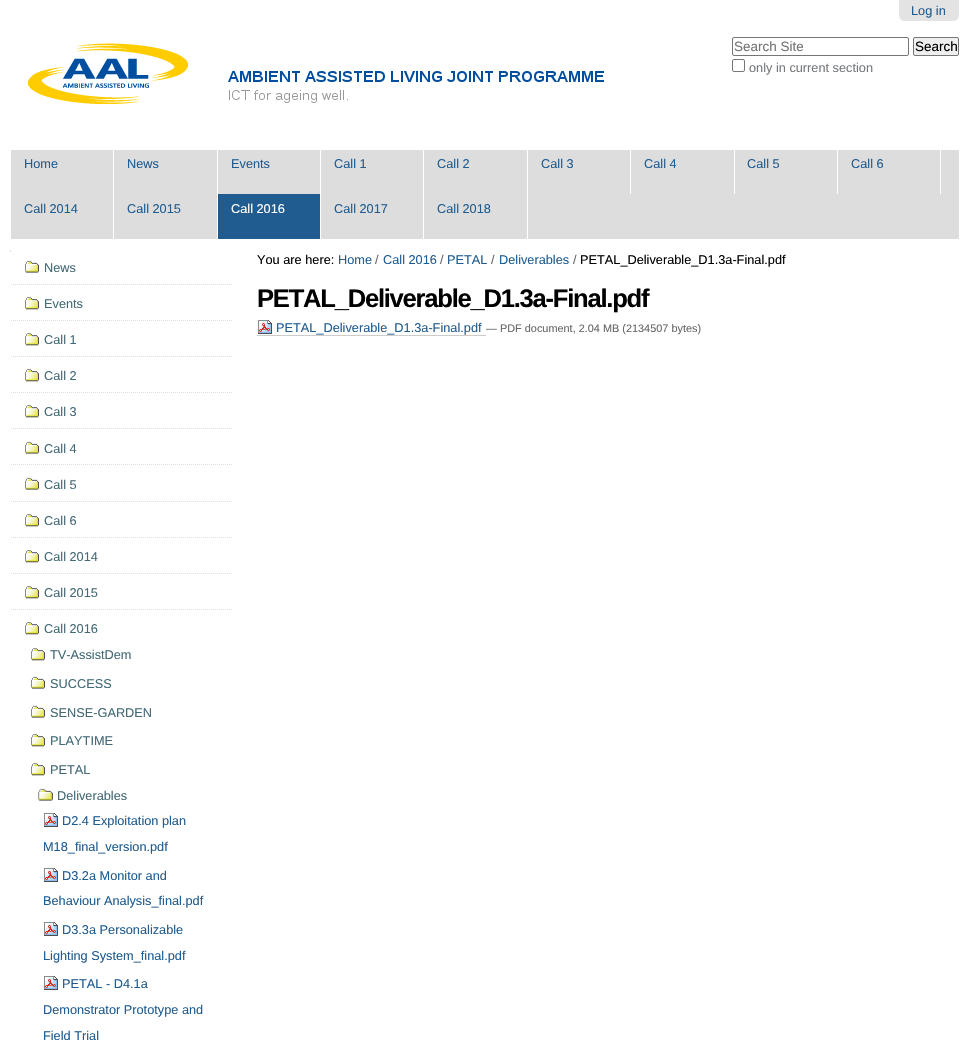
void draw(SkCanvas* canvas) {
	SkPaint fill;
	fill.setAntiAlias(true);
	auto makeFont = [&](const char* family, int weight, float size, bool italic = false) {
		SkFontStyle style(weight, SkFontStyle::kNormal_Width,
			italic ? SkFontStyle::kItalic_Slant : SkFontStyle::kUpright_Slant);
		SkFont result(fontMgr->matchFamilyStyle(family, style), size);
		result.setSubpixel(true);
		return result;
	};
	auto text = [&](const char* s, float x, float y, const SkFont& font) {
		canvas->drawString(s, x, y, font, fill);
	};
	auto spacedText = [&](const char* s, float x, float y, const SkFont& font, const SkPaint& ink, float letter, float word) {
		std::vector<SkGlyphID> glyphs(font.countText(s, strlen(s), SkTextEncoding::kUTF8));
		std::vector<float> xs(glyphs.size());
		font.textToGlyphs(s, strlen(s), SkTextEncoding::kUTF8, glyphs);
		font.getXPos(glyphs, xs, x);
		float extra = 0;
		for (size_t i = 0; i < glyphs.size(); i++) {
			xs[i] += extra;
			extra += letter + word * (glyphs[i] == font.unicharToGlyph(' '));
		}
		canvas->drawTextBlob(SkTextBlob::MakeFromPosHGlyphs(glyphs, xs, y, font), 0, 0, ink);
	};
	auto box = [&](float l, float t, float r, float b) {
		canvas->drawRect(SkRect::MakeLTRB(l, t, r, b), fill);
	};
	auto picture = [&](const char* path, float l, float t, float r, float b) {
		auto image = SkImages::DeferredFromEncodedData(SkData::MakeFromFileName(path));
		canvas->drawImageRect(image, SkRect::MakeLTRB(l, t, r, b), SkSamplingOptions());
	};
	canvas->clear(0xFFFFFFFF);
	fill.setColor(0xFFE3E3E3);
	canvas->drawPath(SkPathBuilder().moveTo(899, 0).lineTo(959, 0).lineTo(959, 15).cubicTo(959, 18.5f, 956.5f, 21, 953, 21).lineTo(905, 21).cubicTo(901.5f, 21, 899, 18.5f, 899, 15).close().detach(), fill);
	picture("image0.png", 27, 43, 604, 104);
	fill.setStyle(SkPaint::kStroke_Style);
	fill.setStrokeWidth(1);
	fill.setColor(0xFF767676);
	canvas->drawRoundRect(SkRect::MakeLTRB(732.5f, 37.5f, 908.5f, 55.5f), 1.5f, 1.5f, fill);
	fill.setStyle(SkPaint::kFill_Style);
	fill.setColor(0xFFEFEFEF);
	canvas->drawRoundRect(SkRect::MakeLTRB(913.5f, 37.5f, 958.5f, 55.5f), 1.5f, 1.5f, fill);
	fill.setStyle(SkPaint::kStroke_Style);
	fill.setColor(0xFF767676);
	canvas->drawRoundRect(SkRect::MakeLTRB(913.5f, 37.5f, 958.5f, 55.5f), 1.5f, 1.5f, fill);
	canvas->drawRoundRect(SkRect::MakeLTRB(732.5f, 59.5f, 744.5f, 71.5f), 1.5f, 1.5f, fill);
	fill.setStyle(SkPaint::kFill_Style);
	fill.setColor(0xFFDDDDDD);
	box(11, 150, 959, 239);
	fill.setColor(0xFFFFFFFF);
	box(113, 150, 114, 239);
	box(217, 150, 218, 239);
	box(320, 150, 321, 239);
	box(423, 150, 424, 239);
	box(527, 150, 528, 239);
	box(630, 150, 631, 194);
	box(734, 150, 735, 194);
	box(837, 150, 838, 194);
	box(940, 150, 941, 194);
	fill.setColor(0xFF205C90);
	box(218, 194, 320, 239);
	fill.setColor(0xFFDDDDDD);
	box(10, 250, 11, 252);
	fill.setStyle(SkPaint::kStroke_Style);
	fill.setPathEffect(SkDashPathEffect::Make({{1, 1}}, 0));
	canvas->drawPath(SkPathBuilder().moveTo(11, 284.5f).lineTo(232, 284.5f).detach(), fill);
	fill.setPathEffect(nullptr);
	picture("image1.png", 25, 260, 39, 273);
	fill.setPathEffect(SkDashPathEffect::Make({{1, 1}}, 0));
	canvas->drawPath(SkPathBuilder().moveTo(11, 320.5f).lineTo(232, 320.5f).detach(), fill);
	fill.setPathEffect(nullptr);
	picture("image2.png", 25, 297, 39, 310);
	fill.setPathEffect(SkDashPathEffect::Make({{1, 1}}, 0));
	canvas->drawPath(SkPathBuilder().moveTo(11, 356.5f).lineTo(232, 356.5f).detach(), fill);
	fill.setPathEffect(nullptr);
	picture("image2.png", 25, 333, 39, 346);
	fill.setPathEffect(SkDashPathEffect::Make({{1, 1}}, 0));
	canvas->drawPath(SkPathBuilder().moveTo(11, 392.5f).lineTo(232, 392.5f).detach(), fill);
	fill.setPathEffect(nullptr);
	picture("image2.png", 25, 369, 39, 382);
	fill.setPathEffect(SkDashPathEffect::Make({{1, 1}}, 0));
	canvas->drawPath(SkPathBuilder().moveTo(11, 428.5f).lineTo(232, 428.5f).detach(), fill);
	fill.setPathEffect(nullptr);
	picture("image2.png", 25, 405, 39, 418);
	fill.setPathEffect(SkDashPathEffect::Make({{1, 1}}, 0));
	canvas->drawPath(SkPathBuilder().moveTo(11, 464.5f).lineTo(232, 464.5f).detach(), fill);
	fill.setPathEffect(nullptr);
	picture("image1.png", 25, 441, 39, 454);
	fill.setPathEffect(SkDashPathEffect::Make({{1, 1}}, 0));
	canvas->drawPath(SkPathBuilder().moveTo(11, 501.5f).lineTo(232, 501.5f).detach(), fill);
	fill.setPathEffect(nullptr);
	picture("image1.png", 25, 477, 39, 490);
	fill.setPathEffect(SkDashPathEffect::Make({{1, 1}}, 0));
	canvas->drawPath(SkPathBuilder().moveTo(11, 537.5f).lineTo(232, 537.5f).detach(), fill);
	fill.setPathEffect(nullptr);
	picture("image2.png", 25, 514, 39, 527);
	fill.setPathEffect(SkDashPathEffect::Make({{1, 1}}, 0));
	canvas->drawPath(SkPathBuilder().moveTo(11, 573.5f).lineTo(232, 573.5f).detach(), fill);
	fill.setPathEffect(nullptr);
	picture("image2.png", 25, 550, 39, 563);
	fill.setPathEffect(SkDashPathEffect::Make({{1, 1}}, 0));
	canvas->drawPath(SkPathBuilder().moveTo(11, 609.5f).lineTo(232, 609.5f).detach(), fill);
	fill.setPathEffect(nullptr);
	picture("image2.png", 25, 586, 39, 599);
	picture("image2.png", 25, 622, 39, 635);
	picture("image2.png", 31, 648, 45, 661);
	picture("image1.png", 31, 676, 45, 689);
	picture("image1.png", 31, 705, 45, 718);
	picture("image2.png", 31, 734, 45, 747);
	picture("image2.png", 31, 763, 45, 776);
	picture("image3.png", 38, 788, 53, 801);
	picture("image4.png", 44, 813, 58, 827);
	picture("image4.png", 44, 868, 58, 882);
	picture("image4.png", 44, 922, 58, 936);
	picture("image4.png", 44, 976, 58, 990);
	picture("image4.png", 258, 320, 272, 334);
	fill.setStyle(SkPaint::kFill_Style);
	fill.setColor(0xFFCCCCCC);
	box(257, 335, 486, 336);
	auto font1 = makeFont("Liberation Sans", 400, 12.75f);
	fill.setColor(0xFF205C90);
	text("Log in", 911, 15, font1);
	auto font2 = makeFont("Liberation Sans", 400, 13.5f);
	fill.setColor(0xFF757575);
	text("Search Site", 734, 51, font2);
	fill.setColor(0xFF000000);
	text("Search", 915, 51, font2);
	fill.setColor(0xFF76797C);
	text("only in current section", 749, 72, font1);
	fill.setColor(0xFF205C90);
	text("Home", 24, 168, font1);
	text("News", 127, 168, font1);
	text("Events", 231, 168, font1);
	text("Call 1", 334, 168, font1);
	text("Call 2", 437, 168, font1);
	text("Call 3", 541, 168, font1);
	text("Call 4", 644, 168, font1);
	text("Call 5", 747, 168, font1);
	text("Call 6", 851, 168, font1);
	text("Call 2014", 24, 213, font1);
	text("Call 2015", 127, 213, font1);
	fill.setColor(0xFFFFFFFF);
	text("Call 2016", 231, 213, font1);
	fill.setColor(0xFF205C90);
	text("Call 2017", 334, 213, font1);
	text("Call 2018", 437, 213, font1);
	fill.setColor(0xFF436976);
	text("News", 44, 272, font1);
	text("Events", 44, 308, font1);
	text("Call 1", 44, 344, font1);
	text("Call 2", 44, 380, font1);
	text("Call 3", 44, 416, font1);
	text("Call 4", 44, 453, font1);
	text("Call 5", 44, 489, font1);
	text("Call 6", 44, 525, font1);
	text("Call 2014", 44, 561, font1);
	text("Call 2015", 44, 597, font1);
	text("Call 2016", 44, 633, font1);
	text("TV-AssistDem", 50, 659, font1);
	text("SUCCESS", 50, 688, font1);
	text("SENSE-GARDEN", 50, 717, font1);
	text("PLAYTIME", 50, 745, font1);
	text("PETAL", 50, 774, font1);
	text("Deliverables", 57, 800, font1);
	fill.setColor(0xFF205C90);
	text("D2.4 Exploitation plan", 62, 825, font1);
	text("M18_final_version.pdf", 43, 851, font1);
	text("D3.2a Monitor and", 62, 880, font1);
	text("Behaviour Analysis_final.pdf", 43, 905, font1);
	text("D3.3a Personalizable", 62, 934, font1);
	text("Lighting System_final.pdf", 43, 960, font1);
	text("PETAL - D4.1a", 62, 988, font1);
	text("Demonstrator Prototype and", 43, 1014, font1);
	text("Field Trial", 43, 1040, font1);
	fill.setColor(0xFF000000);
	text("You are here:", 257, 264, font1);
	fill.setColor(0xFF205C90);
	text("Home", 338, 264, font1);
	fill.setColor(0xFF666666);
	text("/", 375, 264, font1);
	fill.setColor(0xFF205C90);
	text("Call 2016", 383, 264, font1);
	fill.setColor(0xFF666666);
	text("/", 440, 264, font1);
	fill.setColor(0xFF205C90);
	text("PETAL", 447, 264, font1);
	fill.setColor(0xFF666666);
	text("/", 491, 264, font1);
	fill.setColor(0xFF205C90);
	text("Deliverables", 499, 264, font1);
	fill.setColor(0xFF666666);
	text("/", 573, 264, font1);
	fill.setColor(0xFF000000);
	text("PETAL_Deliverable_D1.3a-Final.pdf", 580, 264, font1);
	auto font3 = makeFont("Liberation Sans", 700, 25.6f);
	spacedText("PETAL_Deliverable_D1.3a-Final.pdf", 257, 307, font3, fill, -1.25f, 0);
	fill.setColor(0xFF205C90);
	text("PETAL_Deliverable_D1.3a-Final.pdf", 276, 332, font1);
	auto font4 = makeFont("Liberation Sans", 400, 10.9f);
	fill.setColor(0xFF666666);
	text("— PDF document, 2.04 MB (2134507 bytes)", 486, 332, font4);
}
